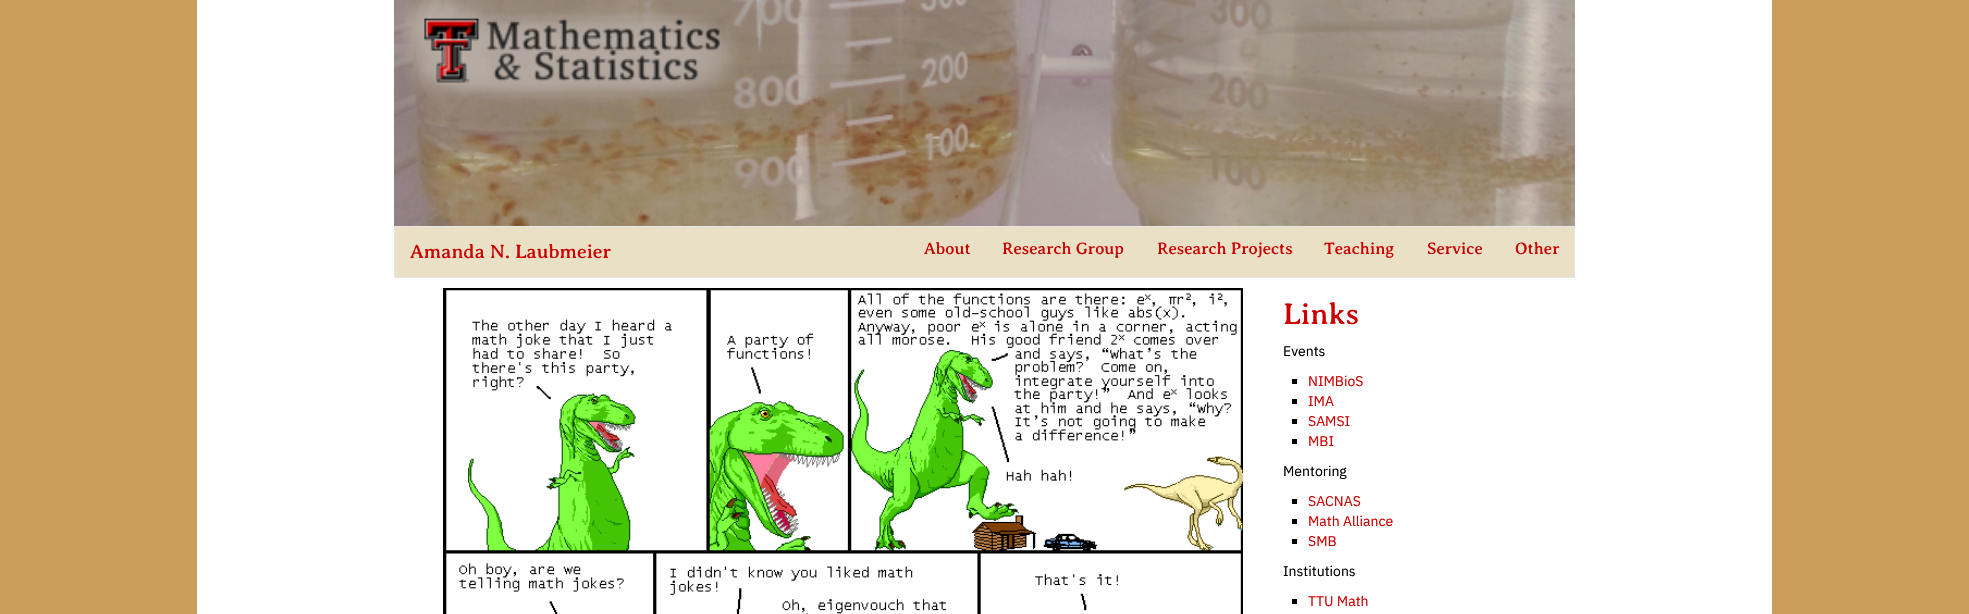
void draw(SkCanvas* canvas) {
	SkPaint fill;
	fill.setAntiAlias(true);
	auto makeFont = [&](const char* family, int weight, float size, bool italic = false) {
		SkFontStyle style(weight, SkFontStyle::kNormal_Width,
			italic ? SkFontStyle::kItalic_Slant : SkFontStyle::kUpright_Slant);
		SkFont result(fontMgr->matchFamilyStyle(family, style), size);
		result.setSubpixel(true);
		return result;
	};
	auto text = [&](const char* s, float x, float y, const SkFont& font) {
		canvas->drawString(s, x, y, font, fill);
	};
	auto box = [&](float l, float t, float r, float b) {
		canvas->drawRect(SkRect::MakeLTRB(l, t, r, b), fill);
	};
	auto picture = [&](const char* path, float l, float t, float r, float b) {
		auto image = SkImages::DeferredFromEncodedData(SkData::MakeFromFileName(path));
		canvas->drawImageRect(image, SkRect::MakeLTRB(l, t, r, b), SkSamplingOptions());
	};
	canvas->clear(0xFFFFFFFF);
	fill.setColor(0xFFCB9F5B);
	box(0, 0, 197, 614);
	picture("image0.png", 394, 0, 1575, 226);
	box(1772, 0, 1969, 614);
	fill.setColor(0xFFEAE0C6);
	canvas->drawRect(SkRect::MakeLTRB(394.5f, 226.5f, 1574.5f, 277.5f), fill);
	fill.setStyle(SkPaint::kStroke_Style);
	fill.setStrokeWidth(1);
	fill.setColor(0xFFE7E7E7);
	canvas->drawRect(SkRect::MakeLTRB(394.5f, 226.5f, 1574.5f, 277.5f), fill);
	picture("image1.png", 443, 288, 1243, 614);
	fill.setStyle(SkPaint::kFill_Style);
	fill.setColor(0xFF000000);
	box(1292, 379, 1297, 384);
	box(1292, 399, 1297, 404);
	box(1292, 419, 1297, 424);
	box(1292, 439, 1297, 444);
	box(1292, 499, 1297, 504);
	box(1292, 519, 1297, 524);
	box(1292, 539, 1297, 544);
	box(1292, 599, 1297, 604);
	auto font1 = makeFont("Averia Serif Libre", 400, 19.6f);
	fill.setColor(0xFFCC0000);
	text("Amanda N. Laubmeier", 410, 258, font1);
	auto font2 = makeFont("Averia Serif Libre", 400, 16.75f);
	text("About", 924, 254, font2);
	text("Research Group", 1002, 254, font2);
	text("Research Projects", 1157, 254, font2);
	text("Teaching", 1324, 254, font2);
	text("Service", 1427, 254, font2);
	text("Other", 1515, 254, font2);
	auto font3 = makeFont("Averia Serif Libre", 400, 30);
	text("Links", 1283, 324, font3);
	auto font4 = makeFont("IBM Plex Sans", 400, 14);
	fill.setColor(0xFF000000);
	text("Events", 1283, 356, font4);
	fill.setColor(0xFFCC0000);
	text("NIMBioS", 1308, 386, font4);
	text("IMA", 1308, 406, font4);
	text("SAMSI", 1308, 426, font4);
	text("MBI", 1308, 446, font4);
	fill.setColor(0xFF000000);
	text("Mentoring", 1283, 476, font4);
	fill.setColor(0xFFCC0000);
	text("SACNAS", 1308, 506, font4);
	text("Math Alliance", 1308, 526, font4);
	text("SMB", 1308, 546, font4);
	fill.setColor(0xFF000000);
	text("Institutions", 1283, 576, font4);
	fill.setColor(0xFFCC0000);
	text("TTU Math", 1308, 606, font4);
}
